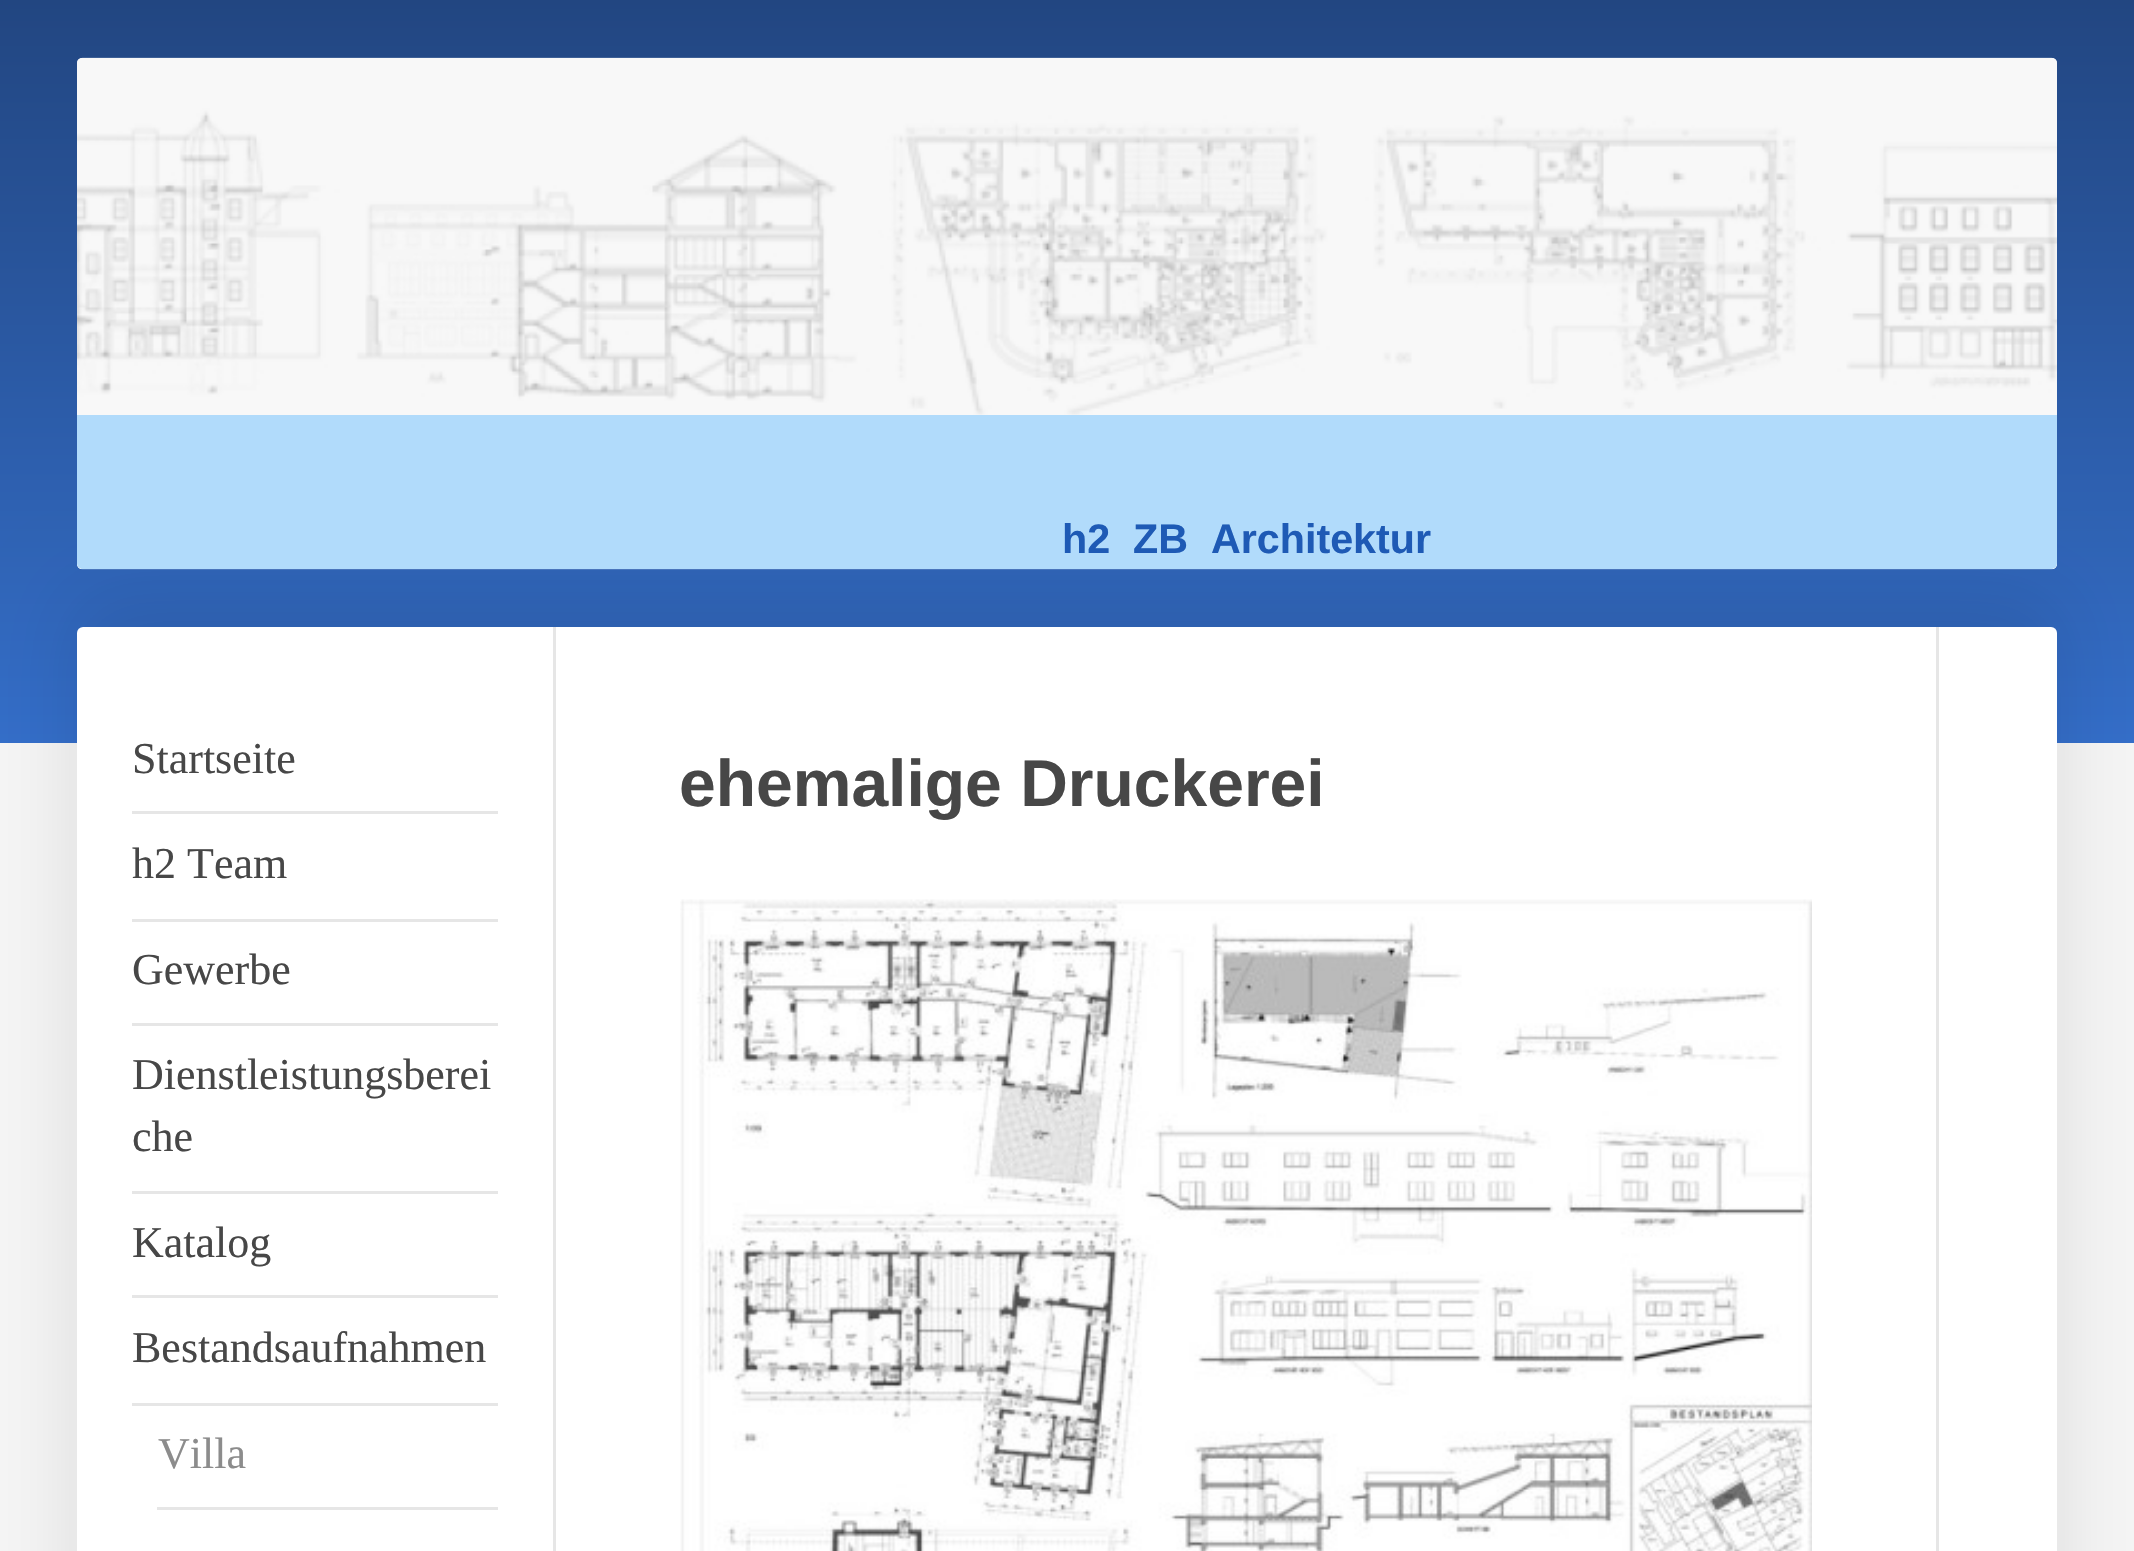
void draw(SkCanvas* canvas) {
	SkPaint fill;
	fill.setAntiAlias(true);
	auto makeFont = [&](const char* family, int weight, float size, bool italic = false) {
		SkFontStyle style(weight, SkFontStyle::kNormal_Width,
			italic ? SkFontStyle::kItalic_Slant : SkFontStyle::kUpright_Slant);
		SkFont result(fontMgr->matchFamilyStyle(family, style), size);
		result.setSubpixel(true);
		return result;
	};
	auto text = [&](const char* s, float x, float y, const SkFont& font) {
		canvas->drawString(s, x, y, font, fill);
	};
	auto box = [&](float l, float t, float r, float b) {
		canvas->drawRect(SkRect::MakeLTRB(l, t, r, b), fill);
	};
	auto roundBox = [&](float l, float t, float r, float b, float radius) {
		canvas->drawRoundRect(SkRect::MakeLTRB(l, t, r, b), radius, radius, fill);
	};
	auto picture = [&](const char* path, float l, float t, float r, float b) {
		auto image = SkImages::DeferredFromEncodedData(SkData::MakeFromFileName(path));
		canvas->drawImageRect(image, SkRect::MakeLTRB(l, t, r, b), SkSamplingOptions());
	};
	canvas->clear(0xFFF5F5F5);
	{
		const SkColor colors[] = {0xFF346EC9, 0xFF224681};
		const float stops[] = {0, 1};
		const SkPoint ends[] = {{0, 743}, {0, 0}};
		fill.setShader(SkGradientShader::MakeLinear(ends, colors, stops, 2, SkTileMode::kClamp));
		fill.setAlpha(255);
	}
	box(0, 0, 2134, 743);
	picture("image0.png", 77, 57, 2057, 570);
	fill.setShader(nullptr);
	fill.setColor(0x1A000000);
	fill.setMaskFilter(SkMaskFilter::MakeBlur(kNormal_SkBlurStyle, 41));
	canvas->drawRoundRect(SkRect::MakeLTRB(77, 600, 2057, 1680), 6, 6, fill);
	fill.setMaskFilter(nullptr);
	picture("image1.png", 77, 57, 2057, 570);
	fill.setColor(0xFFB1DBFB);
	canvas->drawPath(SkPathBuilder().moveTo(77, 415).lineTo(2057, 415).lineTo(2057, 563).cubicTo(2057, 566.5f, 2054.5f, 569, 2051, 569).lineTo(83, 569).cubicTo(79.5f, 569, 77, 566.5f, 77, 563).close().detach(), fill);
	fill.setColor(0xFFFFFFFF);
	roundBox(77, 627, 2057, 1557, 6);
	fill.setColor(0xFFE6E6E6);
	box(132, 811, 498, 814);
	box(132, 919, 498, 922);
	box(132, 1023, 498, 1026);
	box(132, 1191, 498, 1194);
	box(132, 1295, 498, 1298);
	box(132, 1403, 498, 1406);
	box(157, 1507, 498, 1510);
	box(1936, 627, 1939, 1551);
	box(553, 627, 556, 1551);
	picture("image2.png", 680, 899, 1812, 1551);
	auto font1 = makeFont("Liberation Sans", 700, 41.25f);
	fill.setColor(0xFF1E5AB5);
	text("h2  ZB  Architektur", 1062, 553, font1);
	auto font2 = makeFont("Liberation Serif", 400, 44);
	fill.setColor(0xFF474747);
	text("Startseite", 132, 773, font2);
	text("h2 Team", 132, 878, font2);
	text("Gewerbe", 132, 984, font2);
	text("Dienstleistungsberei", 132, 1089, font2);
	text("che", 132, 1151, font2);
	text("Katalog", 132, 1257, font2);
	text("Bestandsaufnahmen", 132, 1362, font2);
	fill.setColor(0xFF8C8C8C);
	text("Villa", 158, 1468, font2);
	auto font3 = makeFont("Liberation Sans", 700, 66);
	fill.setColor(0xFF474747);
	text("ehemalige Druckerei", 679, 806, font3);
}
